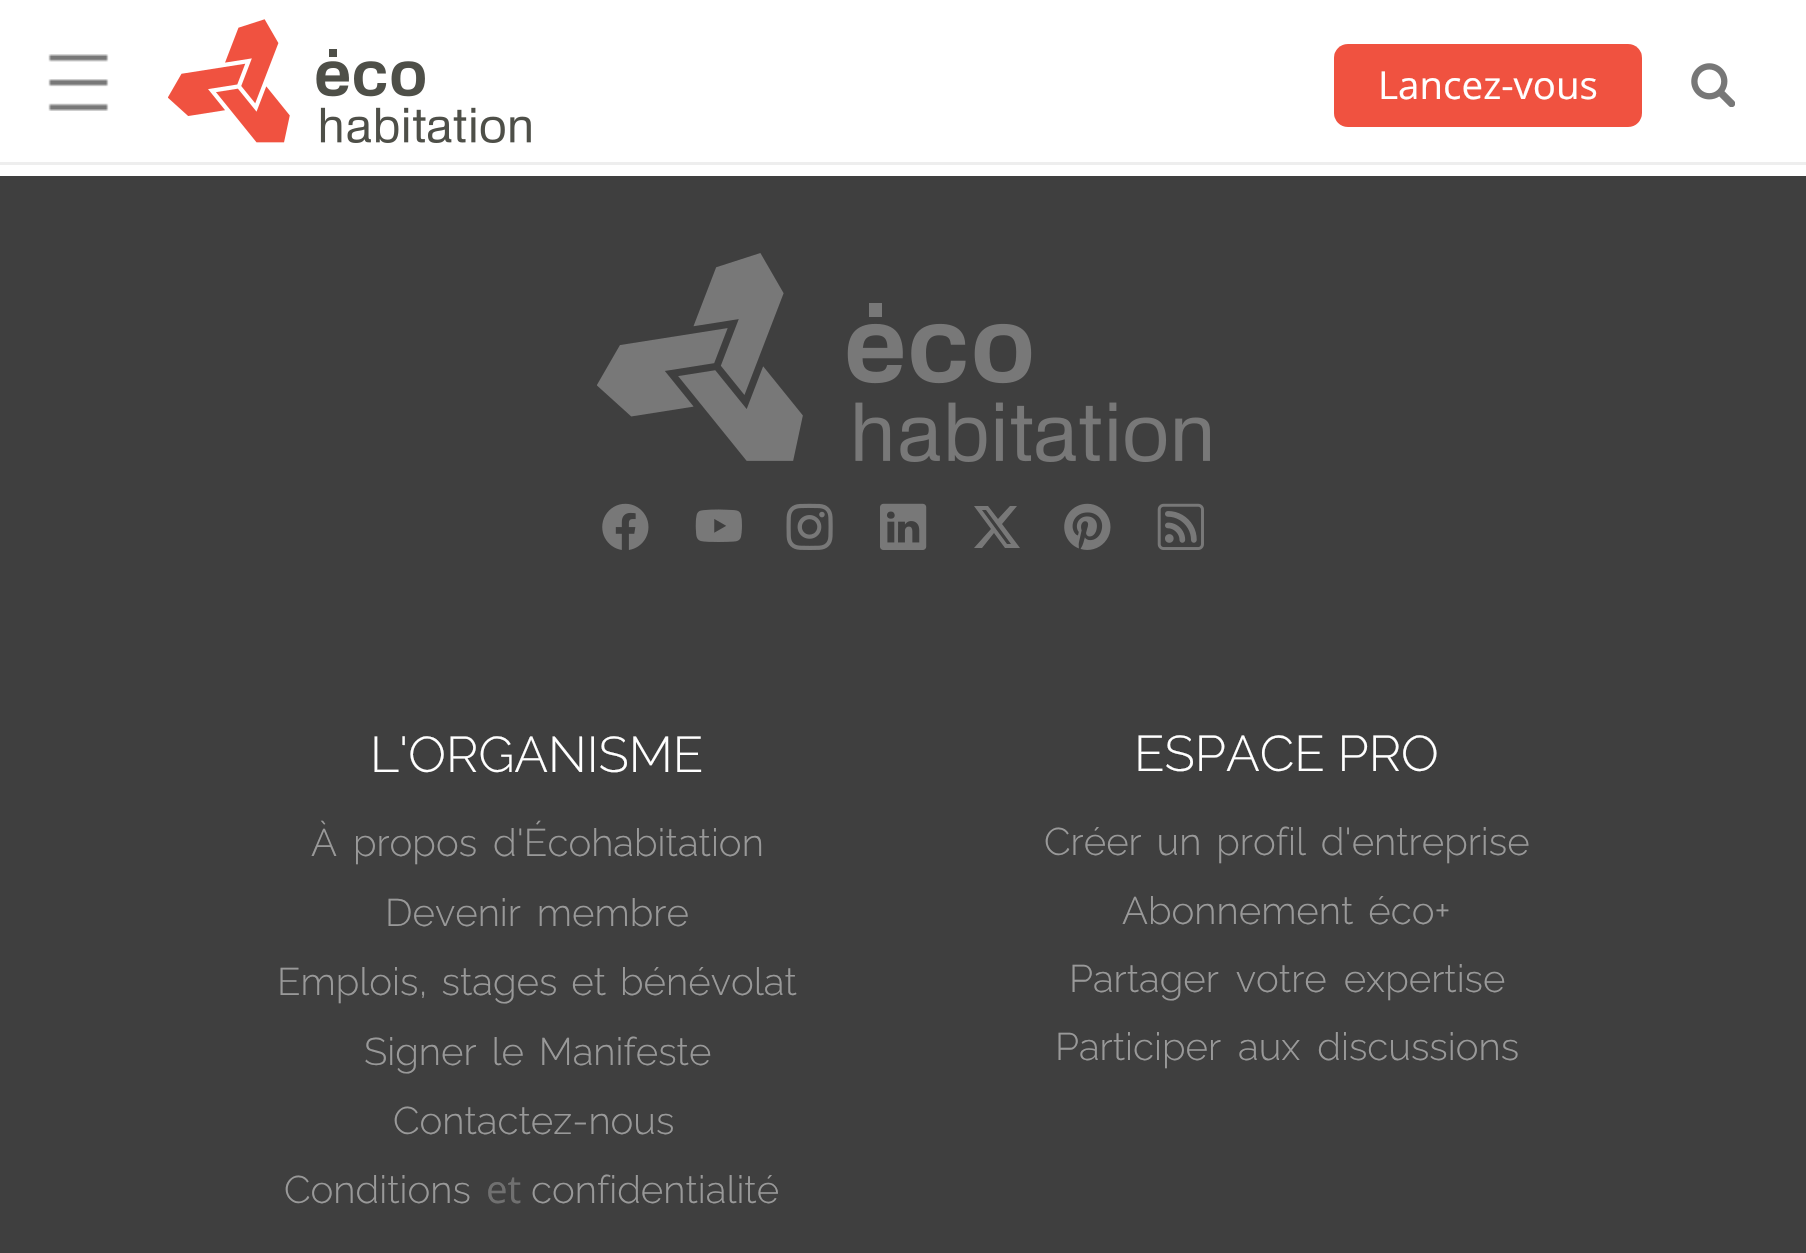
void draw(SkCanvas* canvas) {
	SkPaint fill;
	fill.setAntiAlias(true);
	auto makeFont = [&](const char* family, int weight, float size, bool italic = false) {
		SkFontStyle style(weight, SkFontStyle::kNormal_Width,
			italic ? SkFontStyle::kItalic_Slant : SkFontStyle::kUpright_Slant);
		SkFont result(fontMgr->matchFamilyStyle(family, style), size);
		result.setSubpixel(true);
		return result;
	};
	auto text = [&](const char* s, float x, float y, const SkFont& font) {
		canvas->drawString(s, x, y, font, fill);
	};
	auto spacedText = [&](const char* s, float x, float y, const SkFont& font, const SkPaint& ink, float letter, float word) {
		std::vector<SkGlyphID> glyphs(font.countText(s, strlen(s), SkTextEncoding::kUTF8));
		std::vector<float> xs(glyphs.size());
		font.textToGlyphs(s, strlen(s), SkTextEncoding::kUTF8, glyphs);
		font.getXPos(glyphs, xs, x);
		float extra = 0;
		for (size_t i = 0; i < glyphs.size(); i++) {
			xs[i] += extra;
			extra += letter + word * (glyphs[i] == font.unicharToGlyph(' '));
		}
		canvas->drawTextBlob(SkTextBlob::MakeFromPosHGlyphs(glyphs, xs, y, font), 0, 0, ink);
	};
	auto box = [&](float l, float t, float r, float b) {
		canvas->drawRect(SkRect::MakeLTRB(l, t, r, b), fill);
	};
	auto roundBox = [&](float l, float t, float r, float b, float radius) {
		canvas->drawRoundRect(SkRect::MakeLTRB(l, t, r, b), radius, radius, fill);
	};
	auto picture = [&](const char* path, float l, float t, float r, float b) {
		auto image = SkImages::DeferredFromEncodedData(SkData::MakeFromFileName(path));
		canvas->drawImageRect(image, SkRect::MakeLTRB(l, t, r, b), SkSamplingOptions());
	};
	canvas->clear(0xFFFFFFFF);
	fill.setColor(0xFFEEEEEE);
	box(0, 162, 1806, 165);
	picture("image0.png", 48, 54, 109, 111);
	picture("image1.png", 168, 19, 531, 143);
	fill.setColor(0xFFF05240);
	roundBox(1334, 44, 1642, 127, 14);
	picture("image2.png", 1691, 63, 1735, 107);
	fill.setColor(0xFF3F3F3F);
	box(0, 176, 1806, 1253);
	picture("image3.png", 597, 253, 1210, 462);
	picture("image4.png", 602, 503, 649, 550);
	picture("image5.png", 695, 509, 742, 542);
	picture("image6.png", 786, 503, 833, 550);
	picture("image7.png", 880, 503, 927, 550);
	fill.setColor(0xFF787878);
	canvas->drawPath(SkPathBuilder().moveTo(1010, 506).lineTo(1017, 506).lineTo(1002, 524).lineTo(1020, 548).lineTo(1005, 548).lineTo(994, 533).lineTo(982, 548).lineTo(974, 548).lineTo(991, 529).lineTo(974, 506).lineTo(988, 506).lineTo(998, 519).close().moveTo(1007, 544).lineTo(1011, 544).lineTo(986, 510).lineTo(982, 510).close().detach(), fill);
	picture("image8.png", 1064, 503, 1111, 550);
	picture("image9.png", 1157, 503, 1204, 550);
	auto font1 = makeFont("Open Sans", 400, 38.5f);
	fill.setColor(0xFFFFFFFF);
	text("Lancez-vous", 1378, 99, font1);
	auto font2 = makeFont("Raleway", 300, 50);
	text("L'ORGANISME", 370, 772, font2);
	auto font3 = makeFont("Raleway", 300, 38.5f);
	fill.setColor(0xFF999999);
	spacedText("À propos d'Écohabitation", 311, 856, font3, fill, 0, 6);
	spacedText("Devenir membre", 385, 926, font3, fill, 0, 6);
	spacedText("Emplois, stages et bénévolat", 277, 995, font3, fill, 0, 4);
	spacedText("Signer le Manifeste", 364, 1065, font3, fill, 0, 5);
	text("Contactez-nous", 393, 1134, font3);
	text("Conditions", 284, 1203, font3);
	fill.setColor(0xFF707070);
	text("et", 486, 1203, font1);
	fill.setColor(0xFF999999);
	text("confidentialité", 531, 1203, font3);
	fill.setColor(0xFFFFFFFF);
	text("ESPACE PRO", 1134, 771, font2);
	fill.setColor(0xFF999999);
	spacedText("Créer un profil d'entreprise", 1044, 855, font3, fill, 0, 5);
	spacedText("Abonnement éco+", 1122, 924, font3, fill, 0, 5);
	spacedText("Partager votre expertise", 1069, 992, font3, fill, 0, 7);
	spacedText("Participer aux discussions", 1055, 1060, font3, fill, 0, 7);
}
